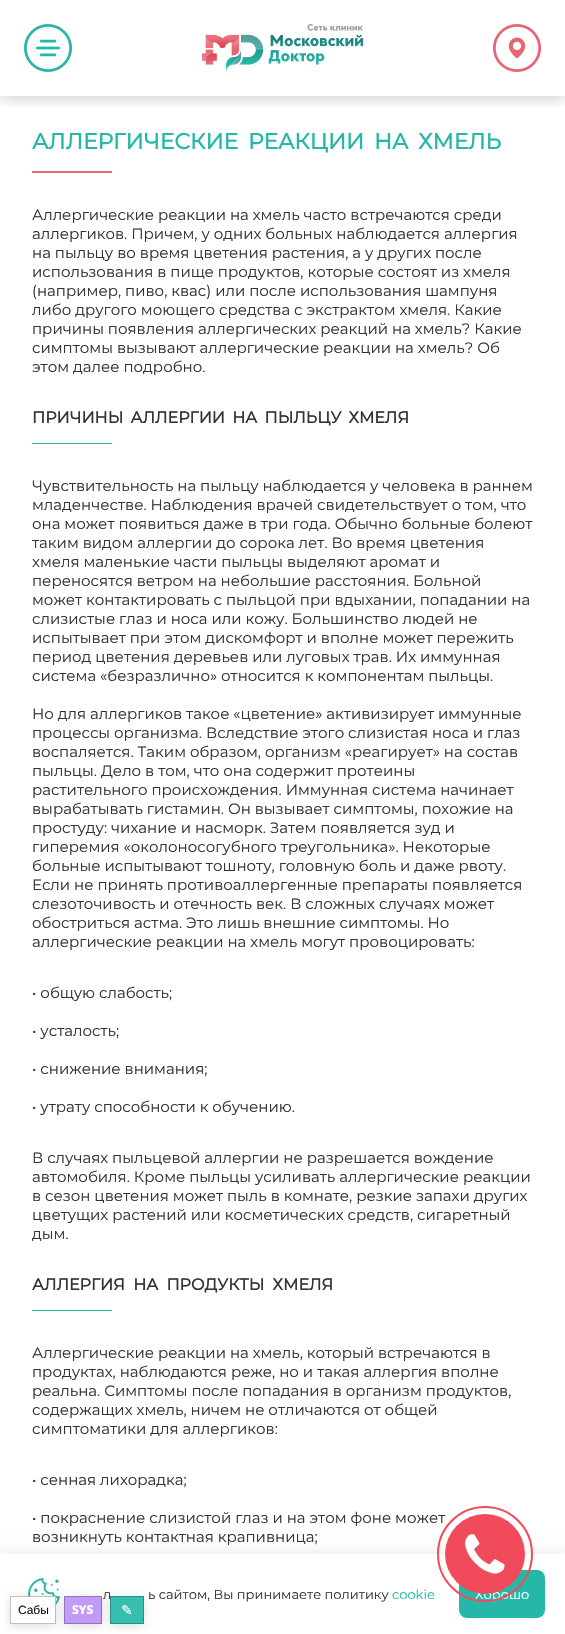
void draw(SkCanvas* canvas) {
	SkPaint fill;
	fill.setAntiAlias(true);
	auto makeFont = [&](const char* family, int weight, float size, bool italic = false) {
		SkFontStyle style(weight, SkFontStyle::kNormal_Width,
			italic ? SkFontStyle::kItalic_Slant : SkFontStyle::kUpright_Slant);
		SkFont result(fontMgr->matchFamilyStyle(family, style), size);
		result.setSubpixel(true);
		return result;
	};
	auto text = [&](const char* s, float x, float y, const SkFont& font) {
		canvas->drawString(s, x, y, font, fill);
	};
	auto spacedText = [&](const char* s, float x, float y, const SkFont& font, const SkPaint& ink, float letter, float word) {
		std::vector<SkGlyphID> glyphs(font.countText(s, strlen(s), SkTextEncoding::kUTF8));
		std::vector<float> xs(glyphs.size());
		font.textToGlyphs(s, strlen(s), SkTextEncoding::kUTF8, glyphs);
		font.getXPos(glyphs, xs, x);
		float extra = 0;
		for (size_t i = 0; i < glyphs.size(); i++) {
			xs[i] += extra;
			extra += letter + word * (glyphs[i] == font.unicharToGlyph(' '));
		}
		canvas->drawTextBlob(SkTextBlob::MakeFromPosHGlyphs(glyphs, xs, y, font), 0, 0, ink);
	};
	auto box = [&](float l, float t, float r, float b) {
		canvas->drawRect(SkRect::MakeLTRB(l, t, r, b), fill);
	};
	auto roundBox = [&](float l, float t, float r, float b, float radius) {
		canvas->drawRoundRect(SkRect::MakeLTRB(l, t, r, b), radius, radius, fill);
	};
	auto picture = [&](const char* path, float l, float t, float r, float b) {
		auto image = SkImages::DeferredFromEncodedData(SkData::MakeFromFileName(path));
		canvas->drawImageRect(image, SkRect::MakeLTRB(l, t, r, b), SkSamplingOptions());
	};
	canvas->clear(0xFFFFFFFF);
	canvas->save();
	canvas->clipRect(SkRect::MakeLTRB(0, 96, 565, 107));
	fill.setColor(0x40000000);
	fill.setMaskFilter(SkMaskFilter::MakeBlur(kNormal_SkBlurStyle, 8));
	canvas->drawRect(SkRect::MakeLTRB(0, 0, 565, 96), fill);
	fill.setMaskFilter(nullptr);
	canvas->restore();
	picture("image0.png", 24, 24, 72, 72);
	picture("image1.png", 202, 24, 363, 72);
	picture("image2.png", 493, 24, 541, 72);
	fill.setColor(0xFFE56773);
	box(32, 171, 112, 173);
	fill.setColor(0xFF25B8A8);
	box(32, 443, 112, 444);
	box(32, 1310, 112, 1311);
	fill.setColor(0x1A000000);
	fill.setMaskFilter(SkMaskFilter::MakeBlur(kNormal_SkBlurStyle, 8));
	canvas->drawRect(SkRect::MakeLTRB(0, 1554, 565, 1634), fill);
	fill.setMaskFilter(nullptr);
	fill.setColor(0xFFFFFFFF);
	box(0, 1554, 565, 1634);
	picture("image3.png", 28, 1578, 60, 1610);
	fill.setColor(0xFF25B8A8);
	roundBox(459, 1570, 545, 1618, 8);
	canvas->save();
	canvas->clipPath(SkPathBuilder(SkPathFillType::kEvenOdd).moveTo(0, 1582).lineTo(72, 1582).lineTo(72, 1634).lineTo(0, 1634).close().moveTo(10, 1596).lineTo(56, 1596).lineTo(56, 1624).lineTo(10, 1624).close().detach(), true);
	fill.setColor(0x1F000000);
	fill.setMaskFilter(SkMaskFilter::MakeBlur(kNormal_SkBlurStyle, 5));
	canvas->drawRect(SkRect::MakeLTRB(10, 1598, 56, 1626), fill);
	fill.setMaskFilter(nullptr);
	canvas->restore();
	fill.setColor(0xEBFFFFFF);
	box(28, 1596, 56, 1610);
	fill.setStyle(SkPaint::kStroke_Style);
	fill.setStrokeWidth(1);
	fill.setColor(0x40000000);
	canvas->drawRect(SkRect::MakeLTRB(10.5f, 1596.5f, 55.5f, 1623.5f), fill);
	canvas->save();
	canvas->clipPath(SkPathBuilder(SkPathFillType::kEvenOdd).moveTo(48, 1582).lineTo(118, 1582).lineTo(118, 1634).lineTo(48, 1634).close().moveTo(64, 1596).lineTo(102, 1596).lineTo(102, 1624).lineTo(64, 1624).close().detach(), true);
	fill.setStyle(SkPaint::kFill_Style);
	fill.setColor(0x1F000000);
	fill.setMaskFilter(SkMaskFilter::MakeBlur(kNormal_SkBlurStyle, 5));
	canvas->drawRect(SkRect::MakeLTRB(64, 1598, 102, 1626), fill);
	fill.setMaskFilter(nullptr);
	canvas->restore();
	fill.setColor(0xEBBD93F9);
	box(64, 1596, 102, 1624);
	fill.setStyle(SkPaint::kStroke_Style);
	fill.setColor(0x40000000);
	canvas->drawRect(SkRect::MakeLTRB(64.5f, 1596.5f, 101.5f, 1623.5f), fill);
	canvas->save();
	canvas->clipPath(SkPathBuilder(SkPathFillType::kEvenOdd).moveTo(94, 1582).lineTo(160, 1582).lineTo(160, 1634).lineTo(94, 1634).close().moveTo(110, 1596).lineTo(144, 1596).lineTo(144, 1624).lineTo(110, 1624).close().detach(), true);
	fill.setStyle(SkPaint::kFill_Style);
	fill.setColor(0x1F000000);
	fill.setMaskFilter(SkMaskFilter::MakeBlur(kNormal_SkBlurStyle, 5));
	canvas->drawRect(SkRect::MakeLTRB(110, 1598, 144, 1626), fill);
	fill.setMaskFilter(nullptr);
	canvas->restore();
	fill.setColor(0xEB25B8A8);
	box(110, 1596, 144, 1624);
	fill.setStyle(SkPaint::kStroke_Style);
	fill.setColor(0x40000000);
	canvas->drawRect(SkRect::MakeLTRB(110.5f, 1596.5f, 143.5f, 1623.5f), fill);
	auto font1 = makeFont("Montserrat", 700, 22);
	fill.setStyle(SkPaint::kFill_Style);
	fill.setColor(0xFF25B8A8);
	spacedText("АЛЛЕРГИЧЕСКИЕ РЕАКЦИИ НА ХМЕЛЬ", 32, 149, font1, fill, 0, 4);
	auto font2 = makeFont("Montserrat", 400, 15);
	fill.setColor(0xFF333333);
	text("Аллергические реакции на хмель часто встречаются среди", 32, 220, font2);
	text("аллергиков. Причем, у одних больных наблюдается аллергия", 32, 239, font2);
	text("на пыльцу во время цветения растения, а у других после", 32, 258, font2);
	text("использования в пище продуктов, которые состоят из хмеля", 32, 277, font2);
	text("(например, пиво, квас) или после использования шампуня", 32, 296, font2);
	text("либо другого моющего средства с экстрактом хмеля. Какие", 32, 315, font2);
	text("причины появления аллергических реакций на хмель? Какие", 32, 334, font2);
	text("симптомы вызывают аллергические реакции на хмель? Об", 32, 353, font2);
	text("этом далее подробно.", 32, 372, font2);
	auto font3 = makeFont("Montserrat", 700, 16);
	spacedText("ПРИЧИНЫ АЛЛЕРГИИ НА ПЫЛЬЦУ ХМЕЛЯ", 32, 423, font3, fill, 0, 3);
	text("Чувствительность на пыльцу наблюдается у человека в раннем", 32, 491, font2);
	text("младенчестве. Наблюдения врачей свидетельствует о том, что", 32, 510, font2);
	text("она может появиться даже в три года. Обычно больные болеют", 32, 529, font2);
	text("таким видом аллергии до сорока лет. Во время цветения", 32, 548, font2);
	text("хмеля маленькие части пыльцы выделяют аромат и", 32, 567, font2);
	text("переносятся ветром на небольшие расстояния. Больной", 32, 586, font2);
	text("может контактировать с пыльцой при вдыхании, попадании на", 32, 605, font2);
	text("слизистые глаз и носа или кожу. Большинство людей не", 32, 624, font2);
	text("испытывает при этом дискомфорт и вполне может пережить", 32, 643, font2);
	text("период цветения деревьев или луговых трав. Их иммунная", 32, 662, font2);
	text("система «безразлично» относится к компонентам пыльцы.", 32, 681, font2);
	text("Но для аллергиков такое «цветение» активизирует иммунные", 32, 719, font2);
	text("процессы организма. Вследствие этого слизистая носа и глаз", 32, 738, font2);
	text("воспаляется. Таким образом, организм «реагирует» на состав", 32, 757, font2);
	text("пыльцы. Дело в том, что она содержит протеины", 32, 776, font2);
	text("растительного происхождения. Иммунная система начинает", 32, 795, font2);
	text("вырабатывать гистамин. Он вызывает симптомы, похожие на", 32, 814, font2);
	text("простуду: чихание и насморк. Затем появляется зуд и", 32, 833, font2);
	text("гиперемия «околоносогубного треугольника». Некоторые", 32, 852, font2);
	text("больные испытывают тошноту, головную боль и даже рвоту.", 32, 871, font2);
	text("Если не принять противоаллергенные препараты появляется", 32, 890, font2);
	text("слезоточивость и отечность век. В сложных случаях может", 32, 909, font2);
	text("обостриться астма. Это лишь внешние симптомы. Но", 32, 928, font2);
	text("аллергические реакции на хмель могут провоцировать:", 32, 947, font2);
	text("• общую слабость;", 32, 998, font2);
	text("• усталость;", 32, 1036, font2);
	text("• снижение внимания;", 32, 1074, font2);
	text("• утрату способности к обучению.", 32, 1112, font2);
	text("В случаях пыльцевой аллергии не разрешается вождение", 32, 1163, font2);
	text("автомобиля. Кроме пыльцы усиливать аллергические реакции", 32, 1182, font2);
	text("в сезон цветения может пыль в комнате, резкие запахи других", 32, 1201, font2);
	text("цветущих растений или косметических средств, сигаретный", 32, 1220, font2);
	text("дым.", 32, 1239, font2);
	spacedText("АЛЛЕРГИЯ НА ПРОДУКТЫ ХМЕЛЯ", 32, 1290, font3, fill, 0, 4);
	text("Аллергические реакции на хмель, который встречаются в", 32, 1358, font2);
	text("продуктах, наблюдаются реже, но и такая аллергия вполне", 32, 1377, font2);
	text("реальна. Симптомы после попадания в организм продуктов,", 32, 1396, font2);
	text("содержащих хмель, ничем не отличаются от общей", 32, 1415, font2);
	text("симптоматики для аллергиков:", 32, 1434, font2);
	text("• сенная лихорадка;", 32, 1485, font2);
	text("• покраснение слизистой глаз и на этом фоне может", 32, 1523, font2);
	text("возникнуть контактная крапивница;", 32, 1542, font2);
	auto font4 = makeFont("Montserrat", 400, 13);
	text("л", 103, 1599, font4);
	text("ь сайтом, Вы принимаете политику", 148, 1599, font4);
	fill.setColor(0xFF25B8A8);
	text("cookie", 392, 1599, font4);
	fill.setColor(0xFFFFFFFF);
	text("Хорошо", 475, 1599, font4);
	fill.setStyle(SkPaint::kStroke_Style);
	fill.setStrokeWidth(2);
	fill.setColor(0xFFF14B5B);
	canvas->drawCircle(485, 1554, 47, fill);
	fill.setStyle(SkPaint::kFill_Style);
	canvas->drawCircle(485, 1554, 40, fill);
	picture("image4.png", 465, 1534, 505, 1574);
	auto font5 = makeFont("Liberation Sans", 400, 12);
	fill.setColor(0xFF111111);
	text("Сабы", 18, 1614, font5);
	auto font6 = makeFont("Noto Sans", 800, 12);
	fill.setColor(0xFFFFFFFF);
	text("SYS", 72, 1614, font6);
	auto font7 = makeFont("DejaVu Sans", 400, 14);
	text("✎", 121, 1615, font7);
}
